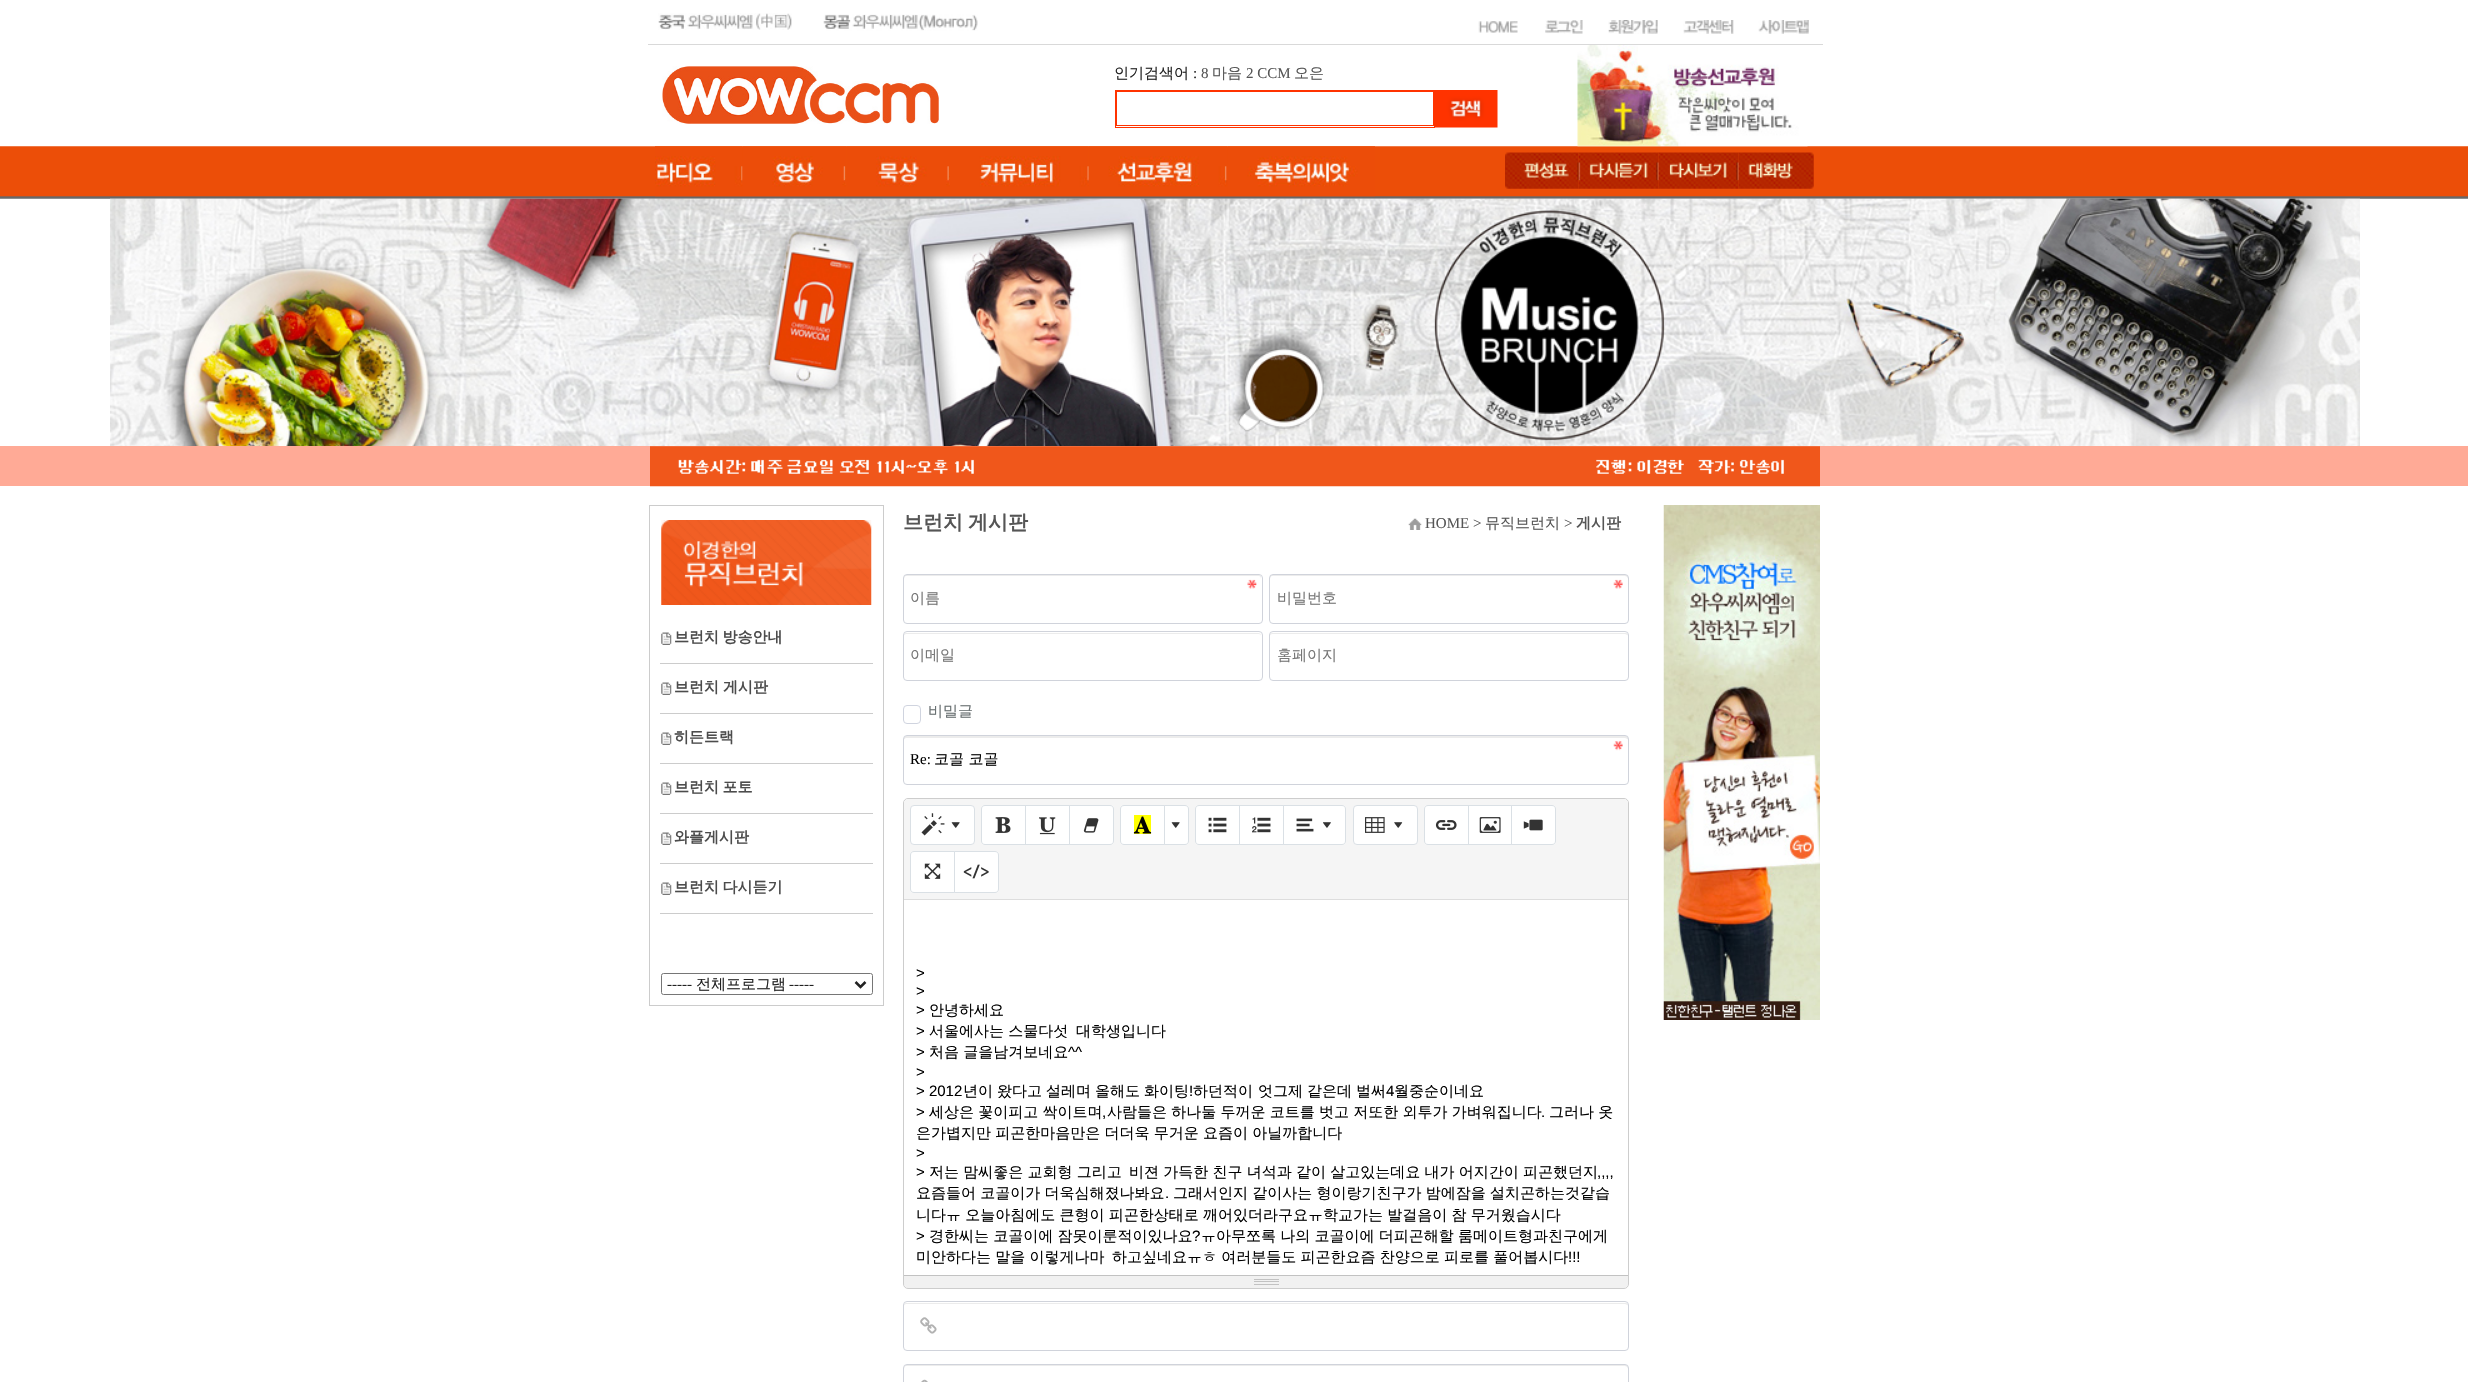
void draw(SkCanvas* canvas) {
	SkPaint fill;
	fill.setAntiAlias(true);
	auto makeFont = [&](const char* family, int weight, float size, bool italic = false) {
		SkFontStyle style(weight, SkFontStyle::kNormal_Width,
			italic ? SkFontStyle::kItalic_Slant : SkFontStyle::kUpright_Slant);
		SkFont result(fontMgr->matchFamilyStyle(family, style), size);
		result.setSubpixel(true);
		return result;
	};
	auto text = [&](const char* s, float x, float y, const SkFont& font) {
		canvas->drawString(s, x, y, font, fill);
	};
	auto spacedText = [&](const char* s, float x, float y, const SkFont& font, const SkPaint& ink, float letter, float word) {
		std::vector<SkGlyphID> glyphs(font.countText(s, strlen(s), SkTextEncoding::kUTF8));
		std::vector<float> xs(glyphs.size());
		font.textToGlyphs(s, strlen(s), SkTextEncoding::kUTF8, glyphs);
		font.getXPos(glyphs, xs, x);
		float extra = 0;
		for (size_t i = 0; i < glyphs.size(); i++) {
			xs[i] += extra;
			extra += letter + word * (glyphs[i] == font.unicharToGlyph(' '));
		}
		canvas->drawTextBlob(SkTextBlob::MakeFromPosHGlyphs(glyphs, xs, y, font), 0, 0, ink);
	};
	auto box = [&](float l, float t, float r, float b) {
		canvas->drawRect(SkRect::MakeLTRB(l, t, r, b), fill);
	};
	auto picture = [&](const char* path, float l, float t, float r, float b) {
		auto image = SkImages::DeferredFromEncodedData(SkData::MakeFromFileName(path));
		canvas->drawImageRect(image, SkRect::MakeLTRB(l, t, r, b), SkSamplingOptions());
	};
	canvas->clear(0xFFFFFFFF);
	picture("image0.png", 658, 13, 792, 30);
	picture("image1.png", 823, 14, 978, 31);
	fill.setColor(0xFFD9D9D9);
	box(648, 44, 1823, 45);
	picture("image2.png", 1478, 21, 1518, 33);
	picture("image3.png", 1545, 20, 1583, 34);
	picture("image4.png", 1608, 20, 1658, 34);
	picture("image5.png", 1683, 20, 1734, 34);
	picture("image6.png", 1758, 20, 1809, 34);
	picture("image7.png", 662, 66, 939, 124);
	fill.setStyle(SkPaint::kStroke_Style);
	fill.setStrokeWidth(1);
	fill.setColor(0xFFFF3300);
	canvas->drawRect(SkRect::MakeLTRB(1115.5f, 90.5f, 1434.5f, 127.5f), fill);
	canvas->drawRect(SkRect::MakeLTRB(1116.5f, 91.5f, 1433.5f, 125.5f), fill);
	picture("image8.png", 1435, 90, 1498, 128);
	picture("image10.png", 0, 146, 2468, 199);
	picture("image9.png", 1577, 45, 1808, 147);
	picture("image11.png", 655, 146, 743, 197);
	picture("image12.png", 742, 146, 847, 197);
	picture("image13.png", 846, 146, 950, 197);
	picture("image14.png", 950, 146, 1089, 197);
	picture("image15.png", 1088, 146, 1228, 197);
	picture("image16.png", 1227, 146, 1375, 197);
	picture("image17.png", 1505, 152, 1579, 189);
	picture("image18.png", 1578, 152, 1659, 189);
	picture("image19.png", 1658, 152, 1739, 189);
	picture("image20.png", 1738, 152, 1814, 189);
	picture("image21.png", 110, 198, 2360, 446);
	fill.setStyle(SkPaint::kFill_Style);
	fill.setColor(0xFFFFAA96);
	box(0, 446, 2468, 486);
	picture("image22.png", 650, 446, 1820, 487);
	fill.setColor(0xFFCCCCCC);
	box(649, 505, 884, 506);
	box(883, 605, 884, 1006);
	box(883, 505, 884, 606);
	box(649, 1005, 884, 1006);
	box(649, 605, 650, 1006);
	box(649, 505, 650, 606);
	picture("image23.png", 661, 520, 872, 605);
	box(660, 663, 873, 664);
	picture("image24.png", 661, 632, 672, 645);
	box(660, 713, 873, 714);
	picture("image24.png", 661, 682, 672, 695);
	box(660, 763, 873, 764);
	picture("image24.png", 661, 732, 672, 745);
	box(660, 813, 873, 814);
	picture("image24.png", 661, 782, 672, 795);
	box(660, 863, 873, 864);
	picture("image24.png", 661, 832, 672, 845);
	box(660, 913, 873, 914);
	picture("image24.png", 661, 882, 672, 895);
	fill.setStyle(SkPaint::kStroke_Style);
	fill.setColor(0xFF767676);
	canvas->drawRoundRect(SkRect::MakeLTRB(661.5f, 973.5f, 872.5f, 994.5f), 2, 2, fill);
	fill.setStrokeWidth(2.5f);
	fill.setColor(0xFF222222);
	canvas->drawPath(SkPathBuilder().moveTo(855.5f, 982).lineTo(860.5f, 987).lineTo(865.5f, 982).detach(), fill);
	picture("image25.png", 1408, 518, 1422, 530);
	picture("image26.png", 1247, 579, 1257, 589);
	fill.setStyle(SkPaint::kFill_Style);
	fill.setColor(0xFFECECEC);
	canvas->drawPath(SkPathBuilder().moveTo(906, 576).lineTo(1259, 576).cubicTo(1260, 576, 1261, 577, 1261, 579).lineTo(1261, 576).lineTo(1259, 575).lineTo(906, 575).cubicTo(904, 575, 904, 577, 904, 579).cubicTo(904, 577, 905, 576, 906, 576).close().detach(), fill);
	fill.setStyle(SkPaint::kStroke_Style);
	fill.setStrokeWidth(1);
	fill.setColor(0xFFD0D3DB);
	canvas->drawRoundRect(SkRect::MakeLTRB(903.5f, 574.5f, 1262.5f, 623.5f), 3.5f, 3.5f, fill);
	picture("image27.png", 1613, 579, 1623, 589);
	fill.setStyle(SkPaint::kFill_Style);
	fill.setColor(0xFFECECEC);
	canvas->drawPath(SkPathBuilder().moveTo(1272, 576).lineTo(1625, 576).cubicTo(1626, 576, 1628, 577, 1628, 579).cubicTo(1628, 577, 1628, 575, 1626, 575).lineTo(1272, 575).lineTo(1270, 576).lineTo(1270, 579).cubicTo(1270, 577, 1271, 576, 1272, 576).close().detach(), fill);
	fill.setStyle(SkPaint::kStroke_Style);
	fill.setColor(0xFFD0D3DB);
	canvas->drawRoundRect(SkRect::MakeLTRB(1269.5f, 574.5f, 1628.5f, 623.5f), 3.5f, 3.5f, fill);
	fill.setStyle(SkPaint::kFill_Style);
	fill.setColor(0xFFECECEC);
	canvas->drawPath(SkPathBuilder().moveTo(906, 634).lineTo(1259, 634).cubicTo(1260, 634, 1261, 635, 1261, 636).cubicTo(1261, 634, 1260, 633, 1258, 633).lineTo(906, 633).cubicTo(905, 633, 904, 634, 904, 636).cubicTo(904, 635, 905, 634, 906, 634).close().detach(), fill);
	fill.setStyle(SkPaint::kStroke_Style);
	fill.setColor(0xFFD0D3DB);
	canvas->drawRoundRect(SkRect::MakeLTRB(903.5f, 631.5f, 1262.5f, 680.5f), 3.5f, 3.5f, fill);
	fill.setStyle(SkPaint::kFill_Style);
	fill.setColor(0xFFECECEC);
	canvas->drawPath(SkPathBuilder().moveTo(1272, 634).lineTo(1625, 634).cubicTo(1626, 634, 1628, 635, 1628, 636).cubicTo(1628, 634, 1627, 633, 1626, 633).lineTo(1272, 633).cubicTo(1271, 633, 1270, 634, 1270, 636).cubicTo(1270, 635, 1271, 634, 1272, 634).close().detach(), fill);
	fill.setStyle(SkPaint::kStroke_Style);
	fill.setColor(0xFFD0D3DB);
	canvas->drawRoundRect(SkRect::MakeLTRB(1269.5f, 631.5f, 1628.5f, 680.5f), 3.5f, 3.5f, fill);
	fill.setColor(0xFFD0D4DF);
	canvas->drawRoundRect(SkRect::MakeLTRB(903.5f, 705.5f, 920.5f, 723.5f), 3.5f, 3.5f, fill);
	picture("image28.png", 1613, 741, 1623, 751);
	fill.setStyle(SkPaint::kFill_Style);
	fill.setColor(0xFFECECEC);
	canvas->drawPath(SkPathBuilder().moveTo(906, 738).lineTo(1625, 738).cubicTo(1626, 738, 1628, 739, 1628, 740).lineTo(1628, 738).cubicTo(1628, 737, 1627, 736, 1626, 736).lineTo(906, 736).cubicTo(905, 736, 904, 737, 904, 738).lineTo(904, 740).cubicTo(904, 739, 905, 738, 906, 738).close().detach(), fill);
	fill.setStyle(SkPaint::kStroke_Style);
	fill.setColor(0xFFD0D3DB);
	canvas->drawRoundRect(SkRect::MakeLTRB(903.5f, 735.5f, 1628.5f, 784.5f), 3.5f, 3.5f, fill);
	fill.setColor(0xFFCDCDCD);
	canvas->drawRoundRect(SkRect::MakeLTRB(903.5f, 798.5f, 1628.5f, 1288.5f), 4.5f, 4.5f, fill);
	fill.setStyle(SkPaint::kFill_Style);
	fill.setColor(0xFFF5F5F5);
	canvas->drawPath(SkPathBuilder().moveTo(908, 799).lineTo(1624, 799).cubicTo(1626, 799, 1628, 801, 1628, 803).lineTo(1628, 900).lineTo(904, 900).lineTo(904, 803).cubicTo(904, 801, 906, 799, 908, 799).close().detach(), fill);
	fill.setColor(0xFFDDDDDD);
	box(904, 899, 1628, 900);
	fill.setColor(0xFFFFFFFF);
	canvas->drawRoundRect(SkRect::MakeLTRB(910.5f, 805.5f, 974.5f, 844.5f), 3.5f, 3.5f, fill);
	fill.setStyle(SkPaint::kStroke_Style);
	fill.setColor(0xFFDAE0E5);
	canvas->drawRoundRect(SkRect::MakeLTRB(910.5f, 805.5f, 974.5f, 844.5f), 3.5f, 3.5f, fill);
	picture("image29.png", 921, 813, 945, 836);
	picture("image30.png", 951, 822, 960, 828);
	fill.setStyle(SkPaint::kFill_Style);
	fill.setColor(0xFFFFFFFF);
	canvas->drawPath(SkPathBuilder().moveTo(985, 805.5f).lineTo(1025.5f, 805.5f).lineTo(1025.5f, 844.5f).lineTo(985, 844.5f).cubicTo(983, 844.5f, 981.5f, 843, 981.5f, 841).lineTo(981.5f, 809).cubicTo(981.5f, 807, 983, 805.5f, 985, 805.5f).close().detach(), fill);
	fill.setStyle(SkPaint::kStroke_Style);
	fill.setColor(0xFFDAE0E5);
	canvas->drawPath(SkPathBuilder().moveTo(985, 805.5f).lineTo(1025.5f, 805.5f).lineTo(1025.5f, 844.5f).lineTo(985, 844.5f).cubicTo(983, 844.5f, 981.5f, 843, 981.5f, 841).lineTo(981.5f, 809).cubicTo(981.5f, 807, 983, 805.5f, 985, 805.5f).close().detach(), fill);
	picture("image31.png", 995, 817, 1011, 833);
	fill.setStyle(SkPaint::kFill_Style);
	fill.setColor(0xFFFFFFFF);
	canvas->drawRect(SkRect::MakeLTRB(1025.5f, 805.5f, 1069.5f, 844.5f), fill);
	fill.setStyle(SkPaint::kStroke_Style);
	fill.setColor(0xFFDAE0E5);
	canvas->drawRect(SkRect::MakeLTRB(1025.5f, 805.5f, 1069.5f, 844.5f), fill);
	picture("image32.png", 1039, 817, 1056, 835);
	fill.setStyle(SkPaint::kFill_Style);
	fill.setColor(0xFFFFFFFF);
	canvas->drawPath(SkPathBuilder().moveTo(1069.5f, 805.5f).lineTo(1110, 805.5f).cubicTo(1112, 805.5f, 1113.5f, 807, 1113.5f, 809).lineTo(1113.5f, 841).cubicTo(1113.5f, 843, 1112, 844.5f, 1110, 844.5f).lineTo(1069.5f, 844.5f).close().detach(), fill);
	fill.setStyle(SkPaint::kStroke_Style);
	fill.setColor(0xFFDAE0E5);
	canvas->drawPath(SkPathBuilder().moveTo(1069.5f, 805.5f).lineTo(1110, 805.5f).cubicTo(1112, 805.5f, 1113.5f, 807, 1113.5f, 809).lineTo(1113.5f, 841).cubicTo(1113.5f, 843, 1112, 844.5f, 1110, 844.5f).lineTo(1069.5f, 844.5f).close().detach(), fill);
	picture("image33.png", 1083, 818, 1099, 833);
	fill.setStyle(SkPaint::kFill_Style);
	fill.setColor(0xFFFFFFFF);
	canvas->drawPath(SkPathBuilder().moveTo(1124, 805.5f).lineTo(1164.5f, 805.5f).lineTo(1164.5f, 844.5f).lineTo(1124, 844.5f).cubicTo(1122, 844.5f, 1120.5f, 843, 1120.5f, 841).lineTo(1120.5f, 809).cubicTo(1120.5f, 807, 1122, 805.5f, 1124, 805.5f).close().detach(), fill);
	fill.setStyle(SkPaint::kStroke_Style);
	fill.setColor(0xFFDAE0E5);
	canvas->drawPath(SkPathBuilder().moveTo(1124, 805.5f).lineTo(1164.5f, 805.5f).lineTo(1164.5f, 844.5f).lineTo(1124, 844.5f).cubicTo(1122, 844.5f, 1120.5f, 843, 1120.5f, 841).lineTo(1120.5f, 809).cubicTo(1120.5f, 807, 1122, 805.5f, 1124, 805.5f).close().detach(), fill);
	fill.setStyle(SkPaint::kFill_Style);
	fill.setColor(0xFFFFFF00);
	box(1134, 815, 1151, 834);
	picture("image34.png", 1133, 816, 1152, 834);
	fill.setColor(0xFFFFFFFF);
	canvas->drawPath(SkPathBuilder().moveTo(1164.5f, 805.5f).lineTo(1185, 805.5f).cubicTo(1187, 805.5f, 1188.5f, 807, 1188.5f, 809).lineTo(1188.5f, 841).cubicTo(1188.5f, 843, 1187, 844.5f, 1185, 844.5f).lineTo(1164.5f, 844.5f).close().detach(), fill);
	fill.setStyle(SkPaint::kStroke_Style);
	fill.setColor(0xFFDAE0E5);
	canvas->drawPath(SkPathBuilder().moveTo(1164.5f, 805.5f).lineTo(1185, 805.5f).cubicTo(1187, 805.5f, 1188.5f, 807, 1188.5f, 809).lineTo(1188.5f, 841).cubicTo(1188.5f, 843, 1187, 844.5f, 1185, 844.5f).lineTo(1164.5f, 844.5f).close().detach(), fill);
	picture("image30.png", 1171, 822, 1180, 828);
	fill.setStyle(SkPaint::kFill_Style);
	fill.setColor(0xFFFFFFFF);
	canvas->drawPath(SkPathBuilder().moveTo(1199, 805.5f).lineTo(1239.5f, 805.5f).lineTo(1239.5f, 844.5f).lineTo(1199, 844.5f).cubicTo(1197, 844.5f, 1195.5f, 843, 1195.5f, 841).lineTo(1195.5f, 809).cubicTo(1195.5f, 807, 1197, 805.5f, 1199, 805.5f).close().detach(), fill);
	fill.setStyle(SkPaint::kStroke_Style);
	fill.setColor(0xFFDAE0E5);
	canvas->drawPath(SkPathBuilder().moveTo(1199, 805.5f).lineTo(1239.5f, 805.5f).lineTo(1239.5f, 844.5f).lineTo(1199, 844.5f).cubicTo(1197, 844.5f, 1195.5f, 843, 1195.5f, 841).lineTo(1195.5f, 809).cubicTo(1195.5f, 807, 1197, 805.5f, 1199, 805.5f).close().detach(), fill);
	picture("image35.png", 1208, 817, 1227, 833);
	fill.setStyle(SkPaint::kFill_Style);
	fill.setColor(0xFFFFFFFF);
	canvas->drawRect(SkRect::MakeLTRB(1239.5f, 805.5f, 1283.5f, 844.5f), fill);
	fill.setStyle(SkPaint::kStroke_Style);
	fill.setColor(0xFFDAE0E5);
	canvas->drawRect(SkRect::MakeLTRB(1239.5f, 805.5f, 1283.5f, 844.5f), fill);
	picture("image36.png", 1252, 817, 1271, 833);
	fill.setStyle(SkPaint::kFill_Style);
	fill.setColor(0xFFFFFFFF);
	canvas->drawPath(SkPathBuilder().moveTo(1283.5f, 805.5f).lineTo(1342, 805.5f).cubicTo(1344, 805.5f, 1345.5f, 807, 1345.5f, 809).lineTo(1345.5f, 841).cubicTo(1345.5f, 843, 1344, 844.5f, 1342, 844.5f).lineTo(1283.5f, 844.5f).close().detach(), fill);
	fill.setStyle(SkPaint::kStroke_Style);
	fill.setColor(0xFFDAE0E5);
	canvas->drawPath(SkPathBuilder().moveTo(1283.5f, 805.5f).lineTo(1342, 805.5f).cubicTo(1344, 805.5f, 1345.5f, 807, 1345.5f, 809).lineTo(1345.5f, 841).cubicTo(1345.5f, 843, 1344, 844.5f, 1342, 844.5f).lineTo(1283.5f, 844.5f).close().detach(), fill);
	picture("image37.png", 1296, 818, 1314, 832);
	picture("image38.png", 1323, 822, 1331, 828);
	fill.setStyle(SkPaint::kFill_Style);
	fill.setColor(0xFFFFFFFF);
	canvas->drawRoundRect(SkRect::MakeLTRB(1353.5f, 805.5f, 1417.5f, 844.5f), 3.5f, 3.5f, fill);
	fill.setStyle(SkPaint::kStroke_Style);
	fill.setColor(0xFFDAE0E5);
	canvas->drawRoundRect(SkRect::MakeLTRB(1353.5f, 805.5f, 1417.5f, 844.5f), 3.5f, 3.5f, fill);
	picture("image39.png", 1365, 817, 1385, 833);
	picture("image40.png", 1394, 822, 1403, 828);
	fill.setStyle(SkPaint::kFill_Style);
	fill.setColor(0xFFFFFFFF);
	canvas->drawPath(SkPathBuilder().moveTo(1428, 805.5f).lineTo(1468.5f, 805.5f).lineTo(1468.5f, 844.5f).lineTo(1428, 844.5f).cubicTo(1426, 844.5f, 1424.5f, 843, 1424.5f, 841).lineTo(1424.5f, 809).cubicTo(1424.5f, 807, 1426, 805.5f, 1428, 805.5f).close().detach(), fill);
	fill.setStyle(SkPaint::kStroke_Style);
	fill.setColor(0xFFDAE0E5);
	canvas->drawPath(SkPathBuilder().moveTo(1428, 805.5f).lineTo(1468.5f, 805.5f).lineTo(1468.5f, 844.5f).lineTo(1428, 844.5f).cubicTo(1426, 844.5f, 1424.5f, 843, 1424.5f, 841).lineTo(1424.5f, 809).cubicTo(1424.5f, 807, 1426, 805.5f, 1428, 805.5f).close().detach(), fill);
	picture("image41.png", 1435, 820, 1457, 830);
	fill.setStyle(SkPaint::kFill_Style);
	fill.setColor(0xFFFFFFFF);
	box(1469, 806, 1511, 844);
	fill.setStyle(SkPaint::kStroke_Style);
	fill.setColor(0xFFDAE0E5);
	canvas->drawRect(SkRect::MakeLTRB(1468.5f, 805.5f, 1512.5f, 844.5f), fill);
	picture("image42.png", 1479, 817, 1501, 833);
	fill.setStyle(SkPaint::kFill_Style);
	fill.setColor(0xFFFFFFFF);
	canvas->drawPath(SkPathBuilder().moveTo(1511.5f, 805.5f).lineTo(1552, 805.5f).cubicTo(1554, 805.5f, 1555.5f, 807, 1555.5f, 809).lineTo(1555.5f, 841).cubicTo(1555.5f, 843, 1554, 844.5f, 1552, 844.5f).lineTo(1511.5f, 844.5f).close().detach(), fill);
	fill.setStyle(SkPaint::kStroke_Style);
	fill.setColor(0xFFDAE0E5);
	canvas->drawPath(SkPathBuilder().moveTo(1511.5f, 805.5f).lineTo(1552, 805.5f).cubicTo(1554, 805.5f, 1555.5f, 807, 1555.5f, 809).lineTo(1555.5f, 841).cubicTo(1555.5f, 843, 1554, 844.5f, 1552, 844.5f).lineTo(1511.5f, 844.5f).close().detach(), fill);
	picture("image43.png", 1523, 819, 1543, 831);
	fill.setStyle(SkPaint::kFill_Style);
	fill.setColor(0xFFFFFFFF);
	canvas->drawPath(SkPathBuilder().moveTo(914, 851.5f).lineTo(954.5f, 851.5f).lineTo(954.5f, 892.5f).lineTo(914, 892.5f).cubicTo(912, 892.5f, 910.5f, 891, 910.5f, 889).lineTo(910.5f, 855).cubicTo(910.5f, 853, 912, 851.5f, 914, 851.5f).close().detach(), fill);
	fill.setStyle(SkPaint::kStroke_Style);
	fill.setColor(0xFFDAE0E5);
	canvas->drawPath(SkPathBuilder().moveTo(914, 851.5f).lineTo(954.5f, 851.5f).lineTo(954.5f, 892.5f).lineTo(914, 892.5f).cubicTo(912, 892.5f, 910.5f, 891, 910.5f, 889).lineTo(910.5f, 855).cubicTo(910.5f, 853, 912, 851.5f, 914, 851.5f).close().detach(), fill);
	picture("image44.png", 924, 863, 941, 879);
	fill.setStyle(SkPaint::kFill_Style);
	fill.setColor(0xFFFFFFFF);
	canvas->drawPath(SkPathBuilder().moveTo(954.5f, 851.5f).lineTo(995, 851.5f).cubicTo(997, 851.5f, 998.5f, 853, 998.5f, 855).lineTo(998.5f, 889).cubicTo(998.5f, 891, 997, 892.5f, 995, 892.5f).lineTo(954.5f, 892.5f).close().detach(), fill);
	fill.setStyle(SkPaint::kStroke_Style);
	fill.setColor(0xFFDAE0E5);
	canvas->drawPath(SkPathBuilder().moveTo(954.5f, 851.5f).lineTo(995, 851.5f).cubicTo(997, 851.5f, 998.5f, 853, 998.5f, 855).lineTo(998.5f, 889).cubicTo(998.5f, 891, 997, 892.5f, 995, 892.5f).lineTo(954.5f, 892.5f).close().detach(), fill);
	picture("image45.png", 963, 864, 989, 879);
	fill.setStyle(SkPaint::kFill_Style);
	fill.setColor(0x1C808080);
	canvas->drawPath(SkPathBuilder().moveTo(904, 1275).lineTo(1628, 1275).lineTo(1628, 1283).cubicTo(1628, 1286, 1626, 1288, 1623, 1288).lineTo(909, 1288).cubicTo(906, 1288, 904, 1286, 904, 1283).close().detach(), fill);
	fill.setColor(0xFFC2C2C2);
	box(904, 1275, 1628, 1276);
	box(1254, 1279, 1279, 1280);
	box(1254, 1281, 1279, 1282);
	box(1254, 1284, 1279, 1285);
	fill.setColor(0xFFECECEC);
	canvas->drawPath(SkPathBuilder().moveTo(906, 1304).lineTo(1625, 1304).cubicTo(1626, 1304, 1628, 1305, 1628, 1306).cubicTo(1628, 1304, 1627, 1303, 1626, 1303).lineTo(906, 1303).cubicTo(905, 1303, 904, 1304, 904, 1306).cubicTo(904, 1305, 905, 1304, 906, 1304).close().detach(), fill);
	fill.setStyle(SkPaint::kStroke_Style);
	fill.setColor(0xFFD0D3DB);
	canvas->drawRoundRect(SkRect::MakeLTRB(903.5f, 1301.5f, 1628.5f, 1350.5f), 3.5f, 3.5f, fill);
	picture("image46.png", 920, 1317, 937, 1334);
	fill.setStyle(SkPaint::kFill_Style);
	fill.setColor(0xFFECECEC);
	canvas->drawPath(SkPathBuilder().moveTo(906, 1366).lineTo(1625, 1366).cubicTo(1626, 1366, 1628, 1367, 1628, 1369).lineTo(1628, 1368).cubicTo(1628, 1366, 1627, 1365, 1626, 1365).lineTo(906, 1365).cubicTo(905, 1365, 904, 1366, 904, 1368).lineTo(904, 1369).cubicTo(904, 1367, 905, 1366, 906, 1366).close().detach(), fill);
	fill.setStyle(SkPaint::kStroke_Style);
	fill.setColor(0xFFD0D3DB);
	canvas->drawRoundRect(SkRect::MakeLTRB(903.5f, 1364.5f, 1628.5f, 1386.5f), 3.5f, 3.5f, fill);
	picture("image47.png", 921, 1379, 928, 1382);
	picture("image48.png", 1663, 505, 1820, 1020);
	auto font1 = makeFont("WenQuanYi Zen Hei", 500, 15);
	fill.setStyle(SkPaint::kFill_Style);
	fill.setColor(0xFF222222);
	text("인기검색어", 1114, 78, font1);
	auto font2 = makeFont("Liberation Serif", 400, 15);
	text(":", 1193, 78, font2);
	fill.setColor(0xFF555555);
	text("8", 1201, 78, font2);
	text("마음", 1212, 78, font1);
	text("2 CCM", 1246, 78, font2);
	text("오은", 1294, 78, font1);
	auto font3 = makeFont("WenQuanYi Zen Hei", 700, 15);
	fill.setColor(0xFF4C4C4C);
	spacedText("브런치 방송안내", 674, 642, font3, fill, 0, -1);
	text("브런치", 674, 692, font3);
	text("게시판", 723, 692, font3);
	text("히든트랙", 674, 742, font3);
	spacedText("브런치 포토", 674, 792, font3, fill, 0, -1);
	text("와플게시판", 674, 842, font3);
	spacedText("브런치 다시듣기", 674, 892, font3, fill, 0, -1);
	fill.setColor(0xFF222222);
	text("-----", 667, 989, font2);
	text("전체프로그램", 696, 989, font1);
	text("-----", 789, 989, font2);
	auto font4 = makeFont("WenQuanYi Zen Hei", 700, 20);
	fill.setColor(0xFF555555);
	spacedText("브런치 게시판", 903, 529, font4, fill, 0, -1);
	text("HOME >", 1425, 528, font2);
	text("뮤직브런치", 1485, 528, font1);
	text(">", 1564, 528, font2);
	text("게시판", 1576, 528, font3);
	fill.setColor(0xFF757575);
	text("이름", 910, 603, font1);
	text("비밀번호", 1277, 603, font1);
	text("이메일", 910, 660, font1);
	text("홈페이지", 1277, 660, font1);
	fill.setColor(0xFF676E70);
	text("비밀글", 928, 716, font1);
	fill.setColor(0xFF000000);
	text("Re:", 910, 764, font2);
	text("코골 코골", 934, 764, font1);
	auto font5 = makeFont("Liberation Sans", 400, 15);
	text(">", 916, 978, font5);
	text(">", 916, 996, font5);
	text(">", 916, 1015, font5);
	text("안녕하세요", 929, 1015, font1);
	text(">", 916, 1036, font5);
	spacedText("서울에사는 스물다섯", 929, 1036, font1, fill, 0, -0.25f);
	text("대학생입니다", 1076, 1036, font1);
	text(">", 916, 1057, font5);
	spacedText("처음 글을남겨보네요", 929, 1057, font1, fill, 0, -0.25f);
	text("^^", 1068, 1057, font5);
	text(">", 916, 1077, font5);
	text("> 2012", 916, 1096, font5);
	text("년이", 963, 1096, font1);
	text("왔다고", 997, 1096, font1);
	text("설레며", 1046, 1096, font1);
	text("올해도", 1095, 1096, font1);
	text("화이팅", 1144, 1096, font1);
	text("!", 1189, 1096, font5);
	text("하던적이", 1193, 1096, font1);
	text("엇그제", 1258, 1096, font1);
	text("같은데", 1307, 1096, font1);
	text("벌써", 1356, 1096, font1);
	text("4", 1386, 1096, font5);
	text("월중순이네요", 1394, 1096, font1);
	text(">", 916, 1117, font5);
	spacedText("세상은 꽃이피고 싹이트며", 929, 1117, font1, fill, 0, -0.25f);
	spacedText("사람들은 하나둘 두꺼운 코트를 벗고 저또한 외투가 가벼워집니다", 1107, 1117, font1, fill, 0, -0.25f);
	spacedText("그러나 옷", 1549, 1117, font1, fill, 0, -0.25f);
	text(",", 1102, 1117, font5);
	text(".", 1541, 1117, font5);
	spacedText("은가볍지만 피곤한마음만은 더더욱 무거운 요즘이 아닐까합니다", 916, 1138, font1, fill, 0, -0.25f);
	text(">", 916, 1158, font5);
	text(">", 916, 1177, font5);
	spacedText("저는 맘씨좋은 교회형 그리고", 929, 1177, font1, fill, 0, -0.25f);
	spacedText("비젼 가득한 친구 녀석과 같이 살고있는데요 내가 어지간이 피곤했던지", 1129, 1177, font1, fill, 0, -0.25f);
	text(",,,,", 1597, 1177, font5);
	spacedText("요즘들어 코골이가 더욱심해졌나봐요", 916, 1198, font1, fill, 0, -0.25f);
	text(".", 1165, 1198, font5);
	spacedText("그래서인지 같이사는 형이랑기친구가 밤에잠을 설치곤하는것같습", 1173, 1198, font1, fill, 0, -0.25f);
	spacedText("니다ㅠ 오늘아침에도 큰형이 피곤한상태로 깨어있더라구요ㅠ학교가는 발걸음이 참 무거웠습시다", 916, 1220, font1, fill, 0, -0.25f);
	text(">", 916, 1241, font5);
	spacedText("경한씨는 코골이에 잠못이룬적이있나요", 929, 1241, font1, fill, 0, -0.25f);
	text("?", 1192, 1241, font5);
	spacedText("ㅠ아무쪼록 나의 코골이에 더피곤해할 룸메이트형과친구에게", 1201, 1241, font1, fill, 0, -0.25f);
	spacedText("미안하다는 말을 이렇게나마", 916, 1262, font1, fill, 0, -0.25f);
	spacedText("하고싶네요ㅠㅎ 여러분들도 피곤한요즘 찬양으로 피로를 풀어봅시다", 1112, 1262, font1, fill, 0, -0.25f);
	text("!!!", 1568, 1262, font5);
}
